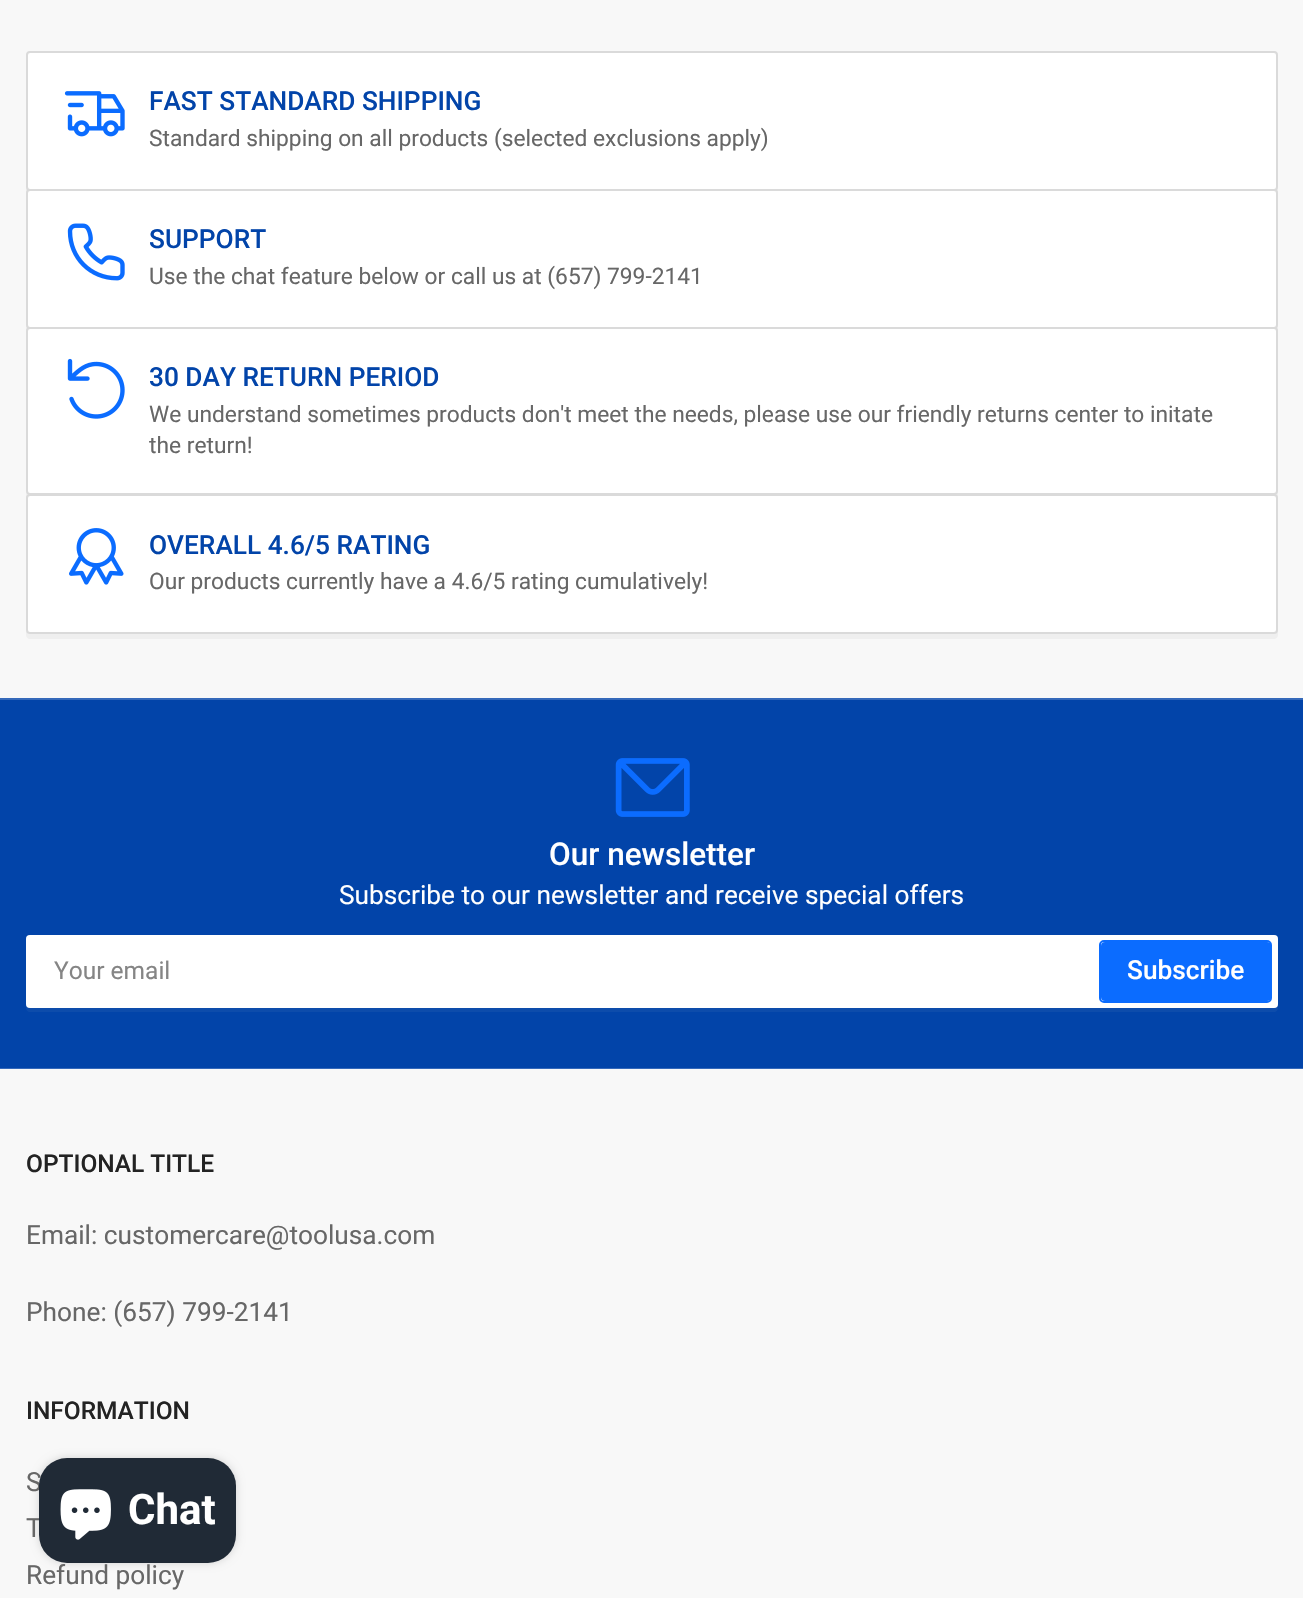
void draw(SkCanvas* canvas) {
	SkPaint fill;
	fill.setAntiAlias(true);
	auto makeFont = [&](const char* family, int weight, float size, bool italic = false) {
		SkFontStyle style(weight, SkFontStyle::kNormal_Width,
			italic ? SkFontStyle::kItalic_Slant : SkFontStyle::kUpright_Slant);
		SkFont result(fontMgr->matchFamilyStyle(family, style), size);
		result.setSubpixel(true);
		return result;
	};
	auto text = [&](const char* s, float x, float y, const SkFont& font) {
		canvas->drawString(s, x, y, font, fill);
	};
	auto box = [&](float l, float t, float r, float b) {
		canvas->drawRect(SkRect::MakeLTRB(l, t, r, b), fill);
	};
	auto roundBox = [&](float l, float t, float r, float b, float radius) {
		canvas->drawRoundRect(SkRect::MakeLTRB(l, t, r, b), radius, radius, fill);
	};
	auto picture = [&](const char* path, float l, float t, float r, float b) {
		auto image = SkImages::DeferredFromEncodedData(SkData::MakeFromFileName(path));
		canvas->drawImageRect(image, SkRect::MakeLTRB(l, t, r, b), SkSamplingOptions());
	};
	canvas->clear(0xFFF8F8F8);
	fill.setColor(0xFFEFEFEF);
	canvas->drawPath(SkPathBuilder().moveTo(26, 59).lineTo(26, 192).cubicTo(26, 194, 28, 196, 30, 196).lineTo(1274, 196).cubicTo(1276, 196, 1278, 194, 1278, 192).lineTo(1278, 60).lineTo(1278, 58).lineTo(1278, 187).cubicTo(1278, 189, 1276, 191, 1274, 191).lineTo(30, 191).cubicTo(28, 191, 26, 189, 26, 187).close().detach(), fill);
	fill.setColor(0xFFFFFFFF);
	canvas->drawRoundRect(SkRect::MakeLTRB(27, 52, 1277, 190), 3, 3, fill);
	fill.setStyle(SkPaint::kStroke_Style);
	fill.setStrokeWidth(2);
	fill.setColor(0xFFDADADA);
	canvas->drawRoundRect(SkRect::MakeLTRB(27, 52, 1277, 190), 3, 3, fill);
	picture("image0.png", 64, 91, 125, 137);
	fill.setStyle(SkPaint::kFill_Style);
	fill.setColor(0xFFEFEFEF);
	canvas->drawPath(SkPathBuilder().moveTo(26, 197).lineTo(26, 330).cubicTo(26, 332, 28, 334, 30, 334).lineTo(1274, 334).cubicTo(1276, 334, 1278, 332, 1278, 330).lineTo(1278, 198).lineTo(1278, 196).lineTo(1278, 326).cubicTo(1278, 327, 1276, 329, 1274, 329).lineTo(30, 329).cubicTo(28, 329, 26, 327, 26, 326).close().detach(), fill);
	fill.setColor(0xFFFFFFFF);
	canvas->drawRoundRect(SkRect::MakeLTRB(27, 190, 1277, 328), 3, 3, fill);
	fill.setStyle(SkPaint::kStroke_Style);
	fill.setColor(0xFFDADADA);
	canvas->drawRoundRect(SkRect::MakeLTRB(27, 190, 1277, 328), 3, 3, fill);
	picture("image1.png", 67, 223, 125, 281);
	fill.setStyle(SkPaint::kFill_Style);
	fill.setColor(0xFFEFEFEF);
	canvas->drawPath(SkPathBuilder().moveTo(26, 336).lineTo(26, 497).cubicTo(26, 499, 28, 501, 30, 501).lineTo(1274, 501).cubicTo(1276, 501, 1278, 499, 1278, 497).lineTo(1278, 337).lineTo(1278, 335).lineTo(1278, 492).cubicTo(1278, 494, 1276, 495, 1274, 495).lineTo(30, 495).cubicTo(28, 495, 26, 494, 26, 492).close().detach(), fill);
	fill.setColor(0xFFFFFFFF);
	canvas->drawRoundRect(SkRect::MakeLTRB(27, 328, 1277, 494), 3, 3, fill);
	fill.setStyle(SkPaint::kStroke_Style);
	fill.setColor(0xFFDADADA);
	canvas->drawRoundRect(SkRect::MakeLTRB(27, 328, 1277, 494), 3, 3, fill);
	picture("image2.png", 67, 358, 125, 419);
	fill.setStyle(SkPaint::kFill_Style);
	fill.setColor(0xFFEFEFEF);
	canvas->drawPath(SkPathBuilder().moveTo(26, 502).lineTo(26, 635).cubicTo(26, 637, 28, 639, 30, 639).lineTo(1274, 639).cubicTo(1276, 639, 1278, 637, 1278, 635).lineTo(1278, 503).lineTo(1278, 501).lineTo(1278, 630).cubicTo(1278, 632, 1276, 634, 1274, 634).lineTo(30, 634).cubicTo(28, 634, 26, 632, 26, 630).close().detach(), fill);
	fill.setColor(0xFFFFFFFF);
	canvas->drawRoundRect(SkRect::MakeLTRB(27, 495, 1277, 633), 3, 3, fill);
	fill.setStyle(SkPaint::kStroke_Style);
	fill.setColor(0xFFDADADA);
	canvas->drawRoundRect(SkRect::MakeLTRB(27, 495, 1277, 633), 3, 3, fill);
	picture("image3.png", 69, 528, 124, 585);
	fill.setStyle(SkPaint::kFill_Style);
	fill.setColor(0xFF0244A9);
	box(0, 700, 1303, 1068);
	fill.setColor(0xFF3569BA);
	box(0, 1068, 1303, 1069);
	box(0, 698, 1303, 700);
	picture("image4.png", 615, 758, 690, 817);
	fill.setColor(0xFF0D4CAB);
	canvas->drawPath(SkPathBuilder().moveTo(26, 941).lineTo(26, 1008).cubicTo(26, 1010, 28, 1012, 30, 1012).lineTo(1274, 1012).cubicTo(1276, 1012, 1278, 1010, 1278, 1008).lineTo(1278, 942).lineTo(1278, 940).lineTo(1278, 1004).cubicTo(1278, 1006, 1276, 1008, 1274, 1008).lineTo(30, 1008).cubicTo(28, 1008, 26, 1006, 26, 1004).close().detach(), fill);
	fill.setColor(0xFFFFFFFF);
	roundBox(26, 935, 1278, 1008, 4);
	fill.setStyle(SkPaint::kStroke_Style);
	fill.setColor(0x33FFFFFF);
	canvas->drawRoundRect(SkRect::MakeLTRB(27, 936, 1277, 1007), 3, 3, fill);
	fill.setColor(0xFF0B6CFF);
	canvas->drawRoundRect(SkRect::MakeLTRB(1100, 941, 1271, 1002), 4, 4, fill);
	fill.setStyle(SkPaint::kFill_Style);
	roundBox(1101, 942, 1271, 1001, 4);
	fill.setColor(0x26000000);
	fill.setMaskFilter(SkMaskFilter::MakeBlur(kNormal_SkBlurStyle, 4.5f));
	canvas->drawRoundRect(SkRect::MakeLTRB(39, 1458, 236, 1563), 28, 28, fill);
	fill.setMaskFilter(nullptr);
	auto font1 = makeFont("Roboto", 500, 26.25f);
	fill.setColor(0xFF0244A9);
	text("FAST STANDARD SHIPPING", 149, 110, font1);
	auto font2 = makeFont("Roboto", 400, 22.75f);
	fill.setColor(0xFF676767);
	text("Standard shipping on all products (selected exclusions apply)", 149, 146, font2);
	fill.setColor(0xFF0244A9);
	text("SUPPORT", 149, 248, font1);
	fill.setColor(0xFF676767);
	text("Use the chat feature below or call us at (657) 799-2141", 149, 284, font2);
	fill.setColor(0xFF0244A9);
	text("30 DAY RETURN PERIOD", 149, 386, font1);
	fill.setColor(0xFF676767);
	text("We understand sometimes products don't meet the needs, please use our friendly returns center to initate", 149, 422, font2);
	text("the return!", 149, 453, font2);
	fill.setColor(0xFF0244A9);
	text("OVERALL 4.6/5 RATING", 149, 554, font1);
	fill.setColor(0xFF676767);
	text("Our products currently have a 4.6/5 rating cumulatively!", 149, 589, font2);
	auto font3 = makeFont("Roboto", 500, 31.5f);
	fill.setColor(0xFFFFFFFF);
	text("Our newsletter", 549, 865, font3);
	auto font4 = makeFont("Roboto", 400, 26.25f);
	text("Subscribe to our newsletter and receive special offers", 339, 904, font4);
	auto font5 = makeFont("Roboto", 400, 24.5f);
	fill.setColor(0xFF858585);
	text("Your email", 54, 979, font5);
	fill.setColor(0xFFFFFFFF);
	text("Subscribe", 1127, 979, font1);
	auto font6 = makeFont("Roboto", 500, 24.5f);
	fill.setColor(0xFF232323);
	text("OPTIONAL TITLE", 26, 1172, font6);
	fill.setColor(0xFF676767);
	text("Email: customercare@toolusa.com", 26, 1244, font4);
	text("Phone: (657) 799-2141", 26, 1321, font4);
	fill.setColor(0xFF232323);
	text("INFORMATION", 26, 1419, font6);
	fill.setColor(0xFF676767);
	text("S", 26, 1491, font4);
	text("T", 26, 1537, font4);
	text("Refund policy", 26, 1584, font4);
	fill.setColor(0xFF202A36);
	roundBox(39, 1458, 236, 1563, 28);
	picture("image5.png", 60, 1489, 111, 1540);
	auto font7 = makeFont("Roboto", 700, 42);
	fill.setColor(0xFFFFFFFF);
	text("Chat", 128, 1524, font7);
}
